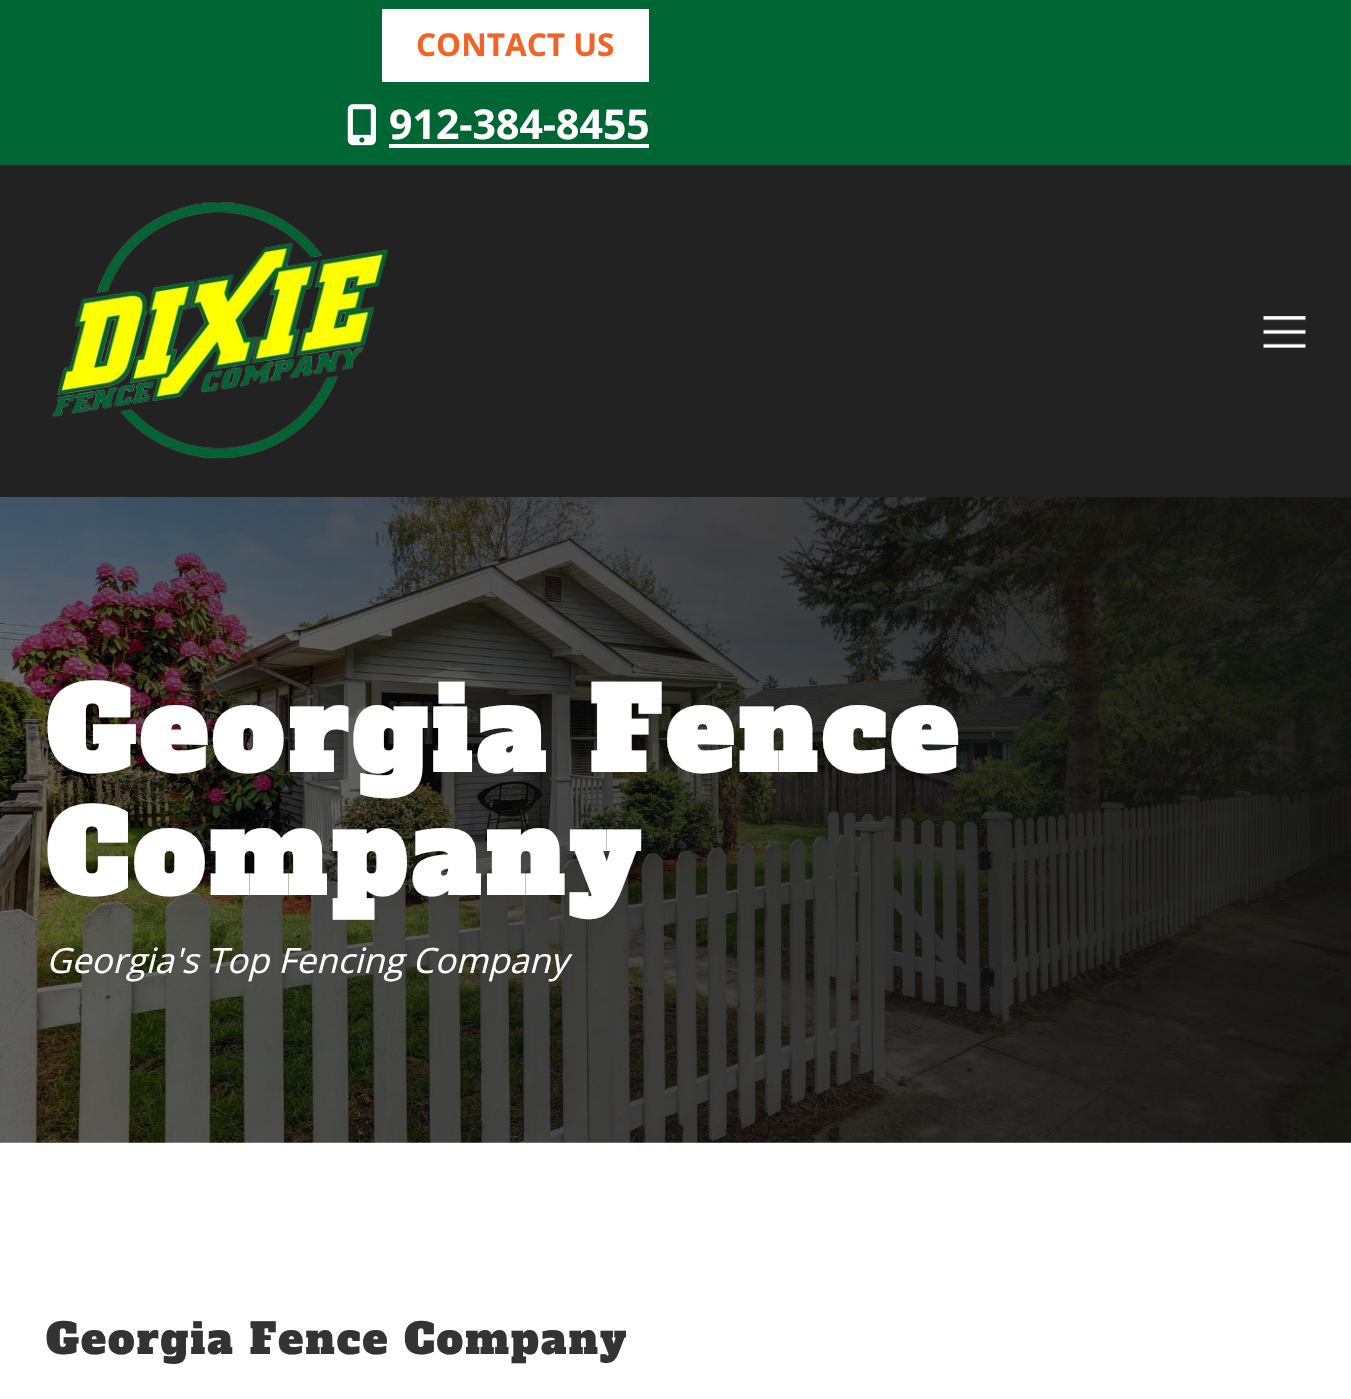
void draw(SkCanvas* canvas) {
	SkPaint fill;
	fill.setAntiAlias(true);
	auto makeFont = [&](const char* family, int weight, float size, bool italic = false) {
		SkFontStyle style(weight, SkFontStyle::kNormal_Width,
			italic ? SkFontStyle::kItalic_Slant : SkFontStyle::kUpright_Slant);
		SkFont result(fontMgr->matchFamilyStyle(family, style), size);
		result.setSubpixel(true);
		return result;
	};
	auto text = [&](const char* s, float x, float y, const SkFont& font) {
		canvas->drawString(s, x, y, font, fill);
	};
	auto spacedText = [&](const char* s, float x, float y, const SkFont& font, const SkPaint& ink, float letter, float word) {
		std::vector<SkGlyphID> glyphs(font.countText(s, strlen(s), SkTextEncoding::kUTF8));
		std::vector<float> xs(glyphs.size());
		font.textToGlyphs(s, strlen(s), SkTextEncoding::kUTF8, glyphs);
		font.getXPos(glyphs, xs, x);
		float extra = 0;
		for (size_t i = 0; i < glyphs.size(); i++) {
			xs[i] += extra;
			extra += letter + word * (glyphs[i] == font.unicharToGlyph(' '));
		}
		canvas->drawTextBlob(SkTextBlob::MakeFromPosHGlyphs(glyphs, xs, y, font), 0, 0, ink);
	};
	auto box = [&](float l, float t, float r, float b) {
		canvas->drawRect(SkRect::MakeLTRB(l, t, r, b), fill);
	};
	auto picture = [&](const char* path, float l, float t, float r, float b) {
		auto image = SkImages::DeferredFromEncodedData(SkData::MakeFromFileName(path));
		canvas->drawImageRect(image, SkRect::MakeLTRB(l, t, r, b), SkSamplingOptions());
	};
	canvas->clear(0xFFFFFFFF);
	fill.setColor(0xFF222222);
	box(0, 165, 1351, 497);
	fill.setColor(0xFF006634);
	box(0, 0, 1351, 165);
	fill.setColor(0xFFFFFFFF);
	box(382, 9, 649, 82);
	picture("image0.png", 347, 104, 376, 146);
	box(389, 144, 649, 148);
	picture("image1.png", 52, 202, 389, 459);
	picture("image2.png", 1263, 316, 1306, 348);
	picture("image3.png", 0, 497, 1351, 1143);
	auto font1 = makeFont("Open Sans", 700, 31.5f);
	fill.setColor(0xFFF26325);
	text("CONTACT US", 416, 56, font1);
	auto font2 = makeFont("Open Sans", 700, 41);
	fill.setColor(0xFFFFFFFF);
	text("912-384-8455", 389, 139, font2);
	auto font3 = makeFont("Alfa Slab One", 700, 112);
	spacedText("Georgia Fence", 46, 772, font3, fill, 5.6f, 0);
	spacedText("Company", 46, 895, font3, fill, 5.6f, 0);
	auto font4 = makeFont("Open Sans", 400, 35, true);
	text("Georgia's Top Fencing Company", 46, 973, font4);
	auto font5 = makeFont("Alfa Slab One", 400, 42);
	fill.setColor(0xFF333333);
	spacedText("Georgia Fence Company", 46, 1354, font5, fill, 2.1f, 0);
}
